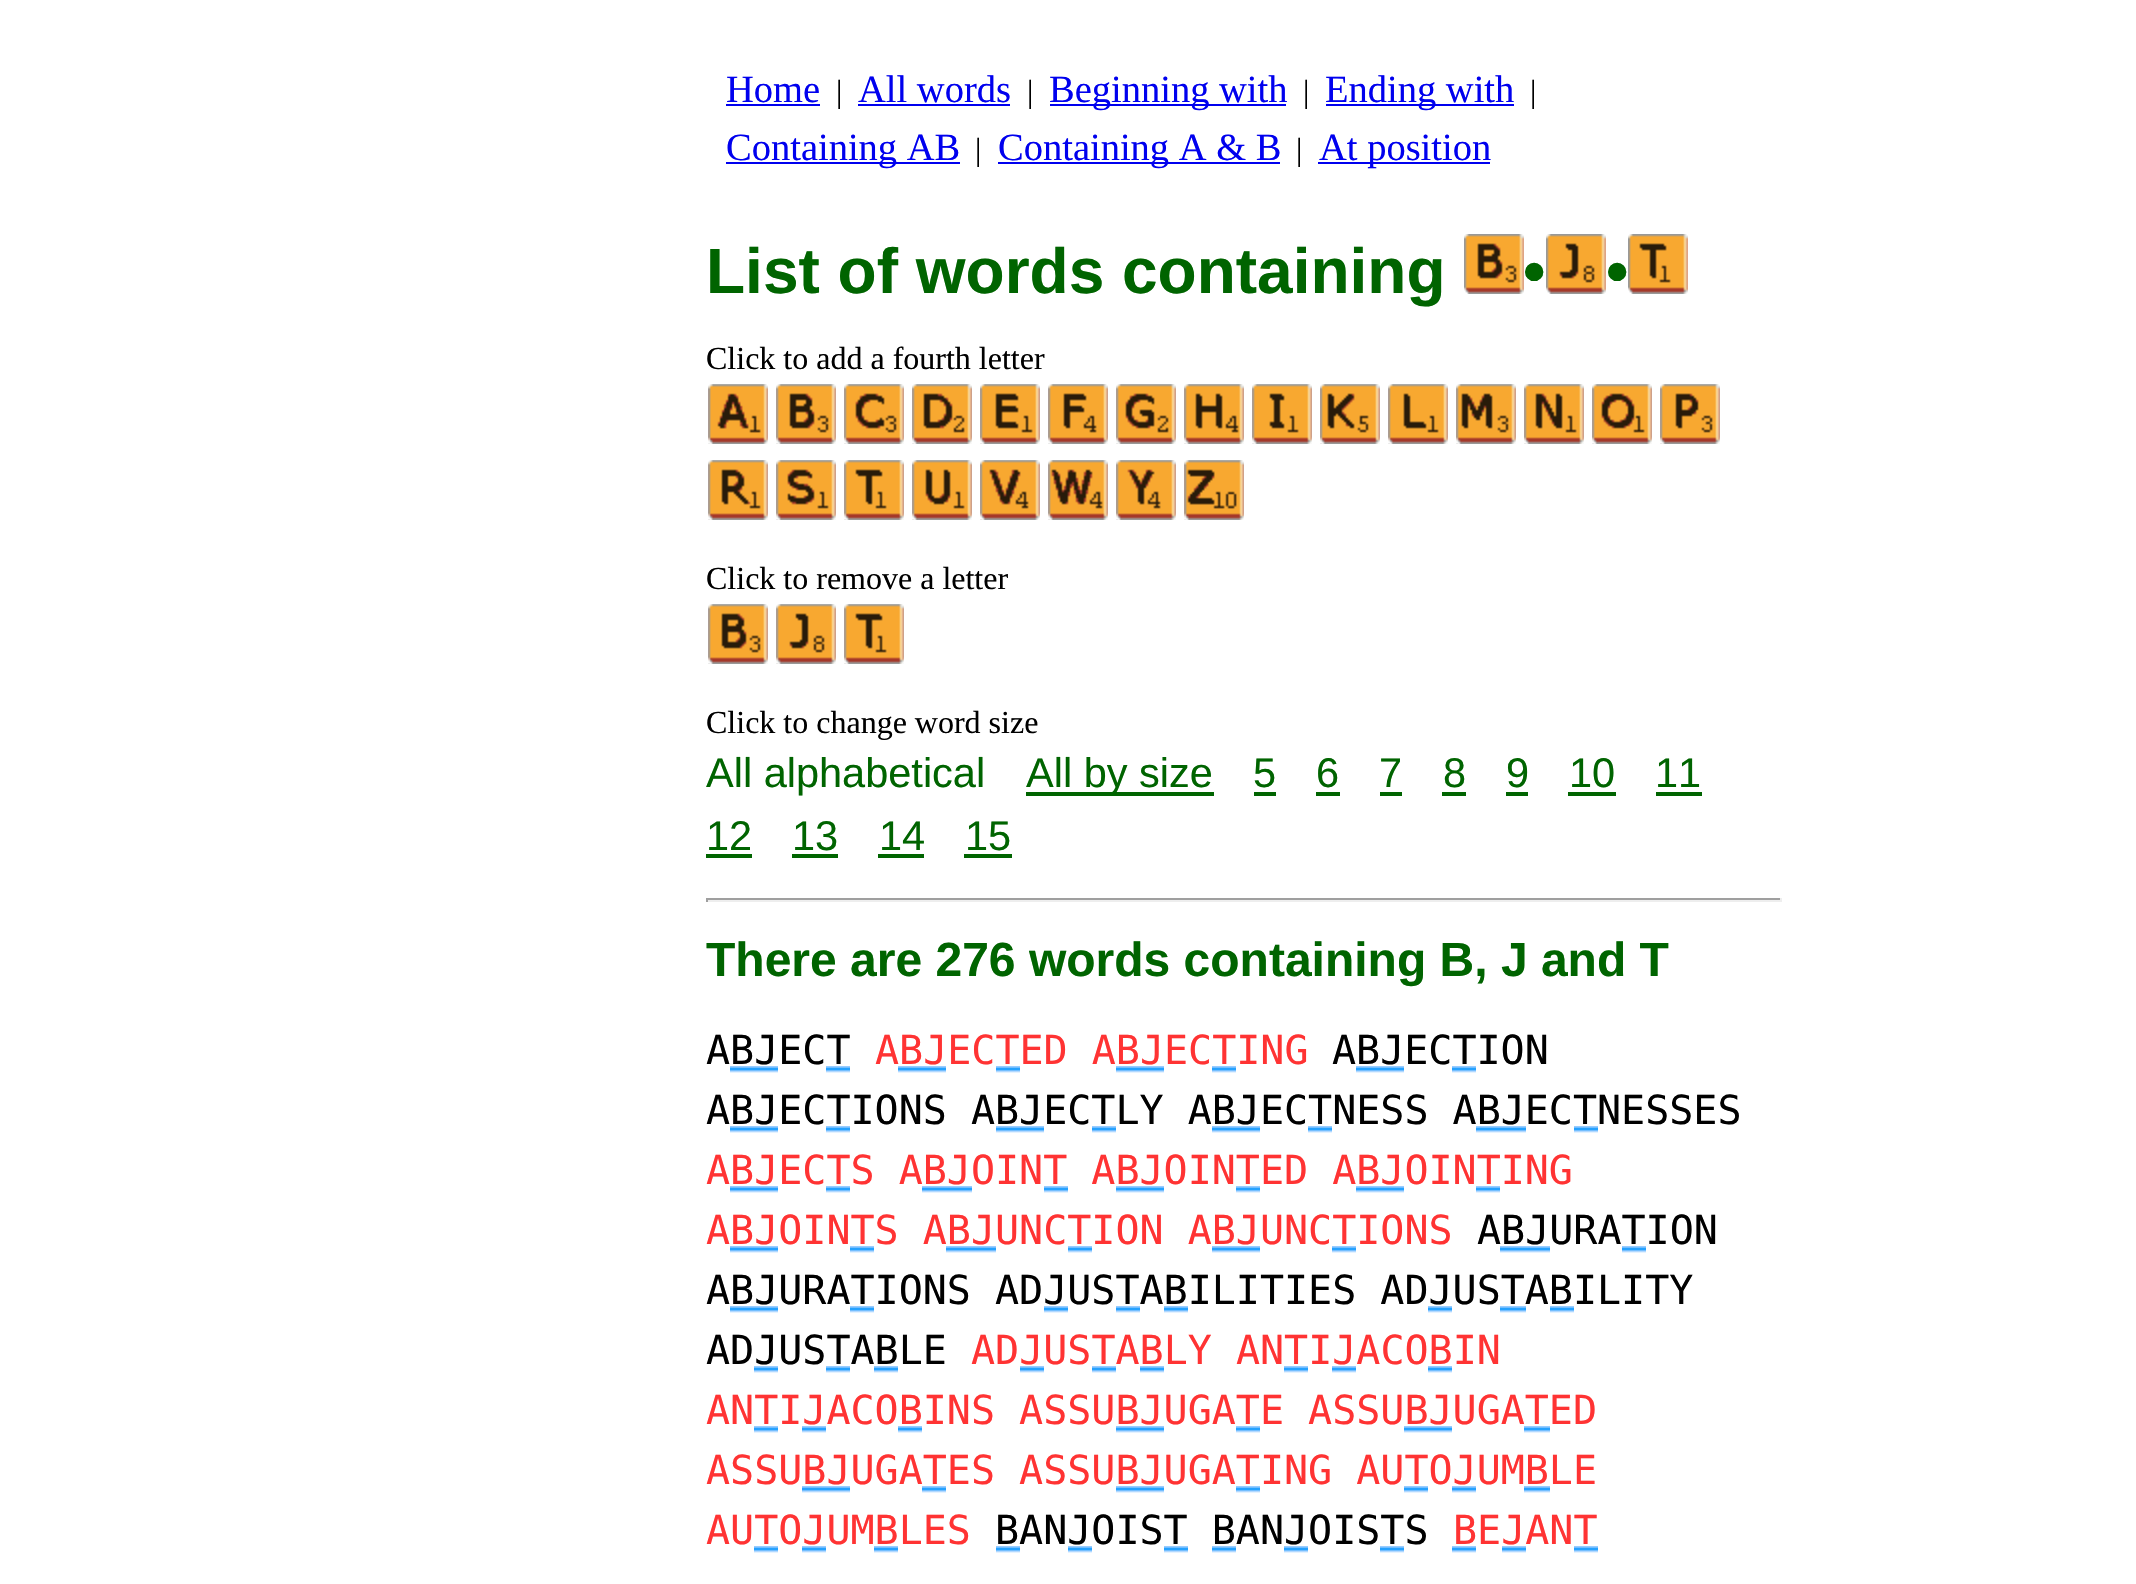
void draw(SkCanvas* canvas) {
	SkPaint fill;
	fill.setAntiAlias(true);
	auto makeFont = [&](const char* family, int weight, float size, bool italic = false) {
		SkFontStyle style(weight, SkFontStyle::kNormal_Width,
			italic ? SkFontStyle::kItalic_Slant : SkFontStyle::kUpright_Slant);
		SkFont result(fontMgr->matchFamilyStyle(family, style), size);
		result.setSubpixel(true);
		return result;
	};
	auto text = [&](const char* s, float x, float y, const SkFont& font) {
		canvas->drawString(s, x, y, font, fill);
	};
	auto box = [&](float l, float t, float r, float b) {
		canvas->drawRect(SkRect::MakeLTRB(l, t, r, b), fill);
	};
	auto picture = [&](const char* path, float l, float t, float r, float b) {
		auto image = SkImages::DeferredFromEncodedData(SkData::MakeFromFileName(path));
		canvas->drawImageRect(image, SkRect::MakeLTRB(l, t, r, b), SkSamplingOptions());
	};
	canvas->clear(0xFFFFFFFF);
	fill.setColor(0xFF0000EE);
	box(726, 104, 820, 106);
	box(858, 104, 1010, 106);
	box(1050, 104, 1286, 106);
	box(1326, 104, 1514, 106);
	box(726, 162, 960, 164);
	box(998, 162, 1280, 164);
	box(1318, 162, 1490, 164);
	picture("image0.png", 1464, 234, 1524, 294);
	picture("image1.png", 1546, 234, 1606, 294);
	picture("image2.png", 1628, 234, 1688, 294);
	picture("image3.png", 708, 384, 768, 444);
	picture("image4.png", 776, 384, 836, 444);
	picture("image5.png", 844, 384, 904, 444);
	picture("image6.png", 912, 384, 972, 444);
	picture("image7.png", 980, 384, 1040, 444);
	picture("image8.png", 1048, 384, 1108, 444);
	picture("image9.png", 1116, 384, 1176, 444);
	picture("image10.png", 1184, 384, 1244, 444);
	picture("image11.png", 1252, 384, 1312, 444);
	picture("image12.png", 1320, 384, 1380, 444);
	picture("image13.png", 1388, 384, 1448, 444);
	picture("image14.png", 1456, 384, 1516, 444);
	picture("image15.png", 1524, 384, 1584, 444);
	picture("image16.png", 1592, 384, 1652, 444);
	picture("image17.png", 1660, 384, 1720, 444);
	picture("image18.png", 708, 460, 768, 520);
	picture("image19.png", 776, 460, 836, 520);
	picture("image20.png", 844, 460, 904, 520);
	picture("image21.png", 912, 460, 972, 520);
	picture("image22.png", 980, 460, 1040, 520);
	picture("image23.png", 1048, 460, 1108, 520);
	picture("image24.png", 1116, 460, 1176, 520);
	picture("image25.png", 1184, 460, 1244, 520);
	picture("image4.png", 708, 604, 768, 664);
	picture("image26.png", 776, 604, 836, 664);
	picture("image20.png", 844, 604, 904, 664);
	fill.setColor(0xFF006400);
	box(1026, 792, 1214, 796);
	box(1254, 792, 1276, 796);
	box(1316, 792, 1340, 796);
	box(1380, 792, 1402, 796);
	box(1442, 792, 1466, 796);
	box(1506, 792, 1528, 796);
	box(1568, 792, 1616, 796);
	box(1656, 792, 1702, 796);
	box(706, 854, 752, 858);
	box(792, 854, 838, 858);
	box(878, 854, 924, 858);
	box(964, 854, 1012, 858);
	fill.setColor(0xFF9F9F9F);
	box(706, 898, 1782, 900);
	fill.setColor(0xFFEEEEEE);
	box(1780, 898, 1782, 902);
	box(706, 900, 1782, 902);
	fill.setColor(0xFF9F9F9F);
	box(706, 898, 708, 902);
	picture("image27.png", 730, 1066, 778, 1073);
	picture("image28.png", 826, 1066, 850, 1073);
	picture("image27.png", 898, 1066, 946, 1073);
	picture("image28.png", 996, 1066, 1020, 1073);
	picture("image27.png", 1116, 1066, 1164, 1073);
	picture("image28.png", 1212, 1066, 1236, 1073);
	picture("image27.png", 1356, 1066, 1404, 1073);
	picture("image28.png", 1452, 1066, 1476, 1073);
	picture("image27.png", 730, 1126, 778, 1133);
	picture("image28.png", 826, 1126, 850, 1133);
	picture("image27.png", 996, 1126, 1044, 1133);
	picture("image28.png", 1092, 1126, 1116, 1133);
	picture("image27.png", 1212, 1126, 1260, 1133);
	picture("image28.png", 1308, 1126, 1332, 1133);
	picture("image29.png", 1476, 1126, 1526, 1133);
	picture("image28.png", 1574, 1126, 1598, 1133);
	picture("image27.png", 730, 1186, 778, 1193);
	picture("image28.png", 826, 1186, 850, 1193);
	picture("image29.png", 922, 1186, 972, 1193);
	picture("image28.png", 1044, 1186, 1068, 1193);
	picture("image27.png", 1116, 1186, 1164, 1193);
	picture("image28.png", 1236, 1186, 1260, 1193);
	picture("image27.png", 1356, 1186, 1404, 1193);
	picture("image28.png", 1476, 1186, 1500, 1193);
	picture("image27.png", 730, 1246, 778, 1253);
	picture("image28.png", 850, 1246, 874, 1253);
	picture("image29.png", 946, 1246, 996, 1253);
	picture("image28.png", 1068, 1246, 1092, 1253);
	picture("image27.png", 1212, 1246, 1260, 1253);
	picture("image28.png", 1332, 1246, 1356, 1253);
	picture("image29.png", 1500, 1246, 1550, 1253);
	picture("image28.png", 1622, 1246, 1646, 1253);
	picture("image27.png", 730, 1306, 778, 1313);
	picture("image28.png", 850, 1306, 874, 1313);
	picture("image28.png", 1044, 1306, 1068, 1313);
	picture("image28.png", 1116, 1306, 1140, 1313);
	picture("image28.png", 1164, 1306, 1188, 1313);
	picture("image28.png", 1428, 1306, 1452, 1313);
	picture("image30.png", 1500, 1306, 1526, 1313);
	picture("image28.png", 1550, 1306, 1574, 1313);
	picture("image28.png", 754, 1366, 778, 1373);
	picture("image28.png", 826, 1366, 850, 1373);
	picture("image28.png", 874, 1366, 898, 1373);
	picture("image28.png", 1020, 1366, 1044, 1373);
	picture("image28.png", 1092, 1366, 1116, 1373);
	picture("image28.png", 1140, 1366, 1164, 1373);
	picture("image28.png", 1284, 1366, 1308, 1373);
	picture("image28.png", 1332, 1366, 1356, 1373);
	picture("image28.png", 1428, 1366, 1452, 1373);
	picture("image28.png", 754, 1426, 778, 1433);
	picture("image28.png", 802, 1426, 826, 1433);
	picture("image28.png", 898, 1426, 922, 1433);
	picture("image27.png", 1116, 1426, 1164, 1433);
	picture("image28.png", 1236, 1426, 1260, 1433);
	picture("image27.png", 1404, 1426, 1452, 1433);
	picture("image30.png", 1524, 1426, 1550, 1433);
	picture("image27.png", 802, 1486, 850, 1493);
	picture("image28.png", 922, 1486, 946, 1493);
	picture("image27.png", 1116, 1486, 1164, 1493);
	picture("image28.png", 1236, 1486, 1260, 1493);
	picture("image28.png", 1404, 1486, 1428, 1493);
	picture("image28.png", 1452, 1486, 1476, 1493);
	picture("image30.png", 1524, 1486, 1550, 1493);
	picture("image28.png", 754, 1546, 778, 1553);
	picture("image28.png", 802, 1546, 826, 1553);
	picture("image28.png", 874, 1546, 898, 1553);
	picture("image28.png", 996, 1546, 1020, 1553);
	picture("image28.png", 1068, 1546, 1092, 1553);
	picture("image28.png", 1164, 1546, 1188, 1553);
	picture("image28.png", 1212, 1546, 1236, 1553);
	picture("image28.png", 1284, 1546, 1308, 1553);
	picture("image28.png", 1380, 1546, 1404, 1553);
	picture("image28.png", 1452, 1546, 1476, 1553);
	picture("image28.png", 1502, 1546, 1526, 1553);
	picture("image28.png", 1574, 1546, 1598, 1553);
	auto font1 = makeFont("Liberation Serif", 400, 38.5f);
	fill.setColor(0xFF0000EE);
	text("Home", 726, 102, font1);
	auto font2 = makeFont("Liberation Serif", 400, 32);
	fill.setColor(0xFF000000);
	text("|", 836, 102, font2);
	fill.setColor(0xFF0000EE);
	text("All words", 858, 102, font1);
	fill.setColor(0xFF000000);
	text("|", 1027, 102, font2);
	fill.setColor(0xFF0000EE);
	text("Beginning with", 1049, 102, font1);
	fill.setColor(0xFF000000);
	text("|", 1303, 102, font2);
	fill.setColor(0xFF0000EE);
	text("Ending with", 1325, 102, font1);
	fill.setColor(0xFF000000);
	text("|", 1530, 102, font2);
	fill.setColor(0xFF0000EE);
	text("Containing AB", 726, 160, font1);
	fill.setColor(0xFF000000);
	text("|", 975, 160, font2);
	fill.setColor(0xFF0000EE);
	text("Containing A & B", 998, 160, font1);
	fill.setColor(0xFF000000);
	text("|", 1296, 160, font2);
	fill.setColor(0xFF0000EE);
	text("At position", 1319, 160, font1);
	auto font3 = makeFont("Liberation Sans", 700, 64);
	fill.setColor(0xFF006400);
	text("List of words containing", 706, 293, font3);
	text("•", 1523, 293, font3);
	text("•", 1606, 293, font3);
	fill.setColor(0xFF000000);
	text("Click to add a fourth letter", 706, 369, font2);
	text("Click to remove a letter", 706, 589, font2);
	text("Click to change word size", 706, 733, font2);
	auto font4 = makeFont("Liberation Sans", 400, 41.5f);
	fill.setColor(0xFF006400);
	text("All alphabetical", 706, 787, font4);
	text("All by size", 1026, 787, font4);
	text("5", 1253, 787, font4);
	text("6", 1316, 787, font4);
	text("7", 1379, 787, font4);
	text("8", 1443, 787, font4);
	text("9", 1506, 787, font4);
	text("10", 1569, 787, font4);
	text("11", 1655, 787, font4);
	text("12", 706, 850, font4);
	text("13", 792, 850, font4);
	text("14", 879, 850, font4);
	text("15", 965, 850, font4);
	auto font5 = makeFont("Liberation Sans", 700, 48);
	text("There are 276 words containing B, J and T", 706, 976, font5);
	auto font6 = makeFont("DejaVu Sans Mono", 400, 40);
	fill.setColor(0xFF000000);
	text("ABJECT", 706, 1064, font6);
	fill.setColor(0xFFFF3333);
	text("ABJECTED ABJECTING", 875, 1064, font6);
	fill.setColor(0xFF000000);
	text("ABJECTION", 1332, 1064, font6);
	text("ABJECTIONS ABJECTLY ABJECTNESS ABJECTNESSES", 706, 1124, font6);
	fill.setColor(0xFFFF3333);
	text("ABJECTS ABJOINT ABJOINTED ABJOINTING", 706, 1184, font6);
	text("ABJOINTS ABJUNCTION ABJUNCTIONS", 706, 1244, font6);
	fill.setColor(0xFF000000);
	text("ABJURATION", 1477, 1244, font6);
	text("ABJURATIONS ADJUSTABILITIES ADJUSTABILITY", 706, 1304, font6);
	text("ADJUSTABLE", 706, 1364, font6);
	fill.setColor(0xFFFF3333);
	text("ADJUSTABLY ANTIJACOBIN", 971, 1364, font6);
	text("ANTIJACOBINS ASSUBJUGATE ASSUBJUGATED", 706, 1424, font6);
	text("ASSUBJUGATES ASSUBJUGATING AUTOJUMBLE", 706, 1484, font6);
	text("AUTOJUMBLES", 706, 1544, font6);
	fill.setColor(0xFF000000);
	text("BANJOIST BANJOISTS", 995, 1544, font6);
	fill.setColor(0xFFFF3333);
	text("BEJANT", 1453, 1544, font6);
}
